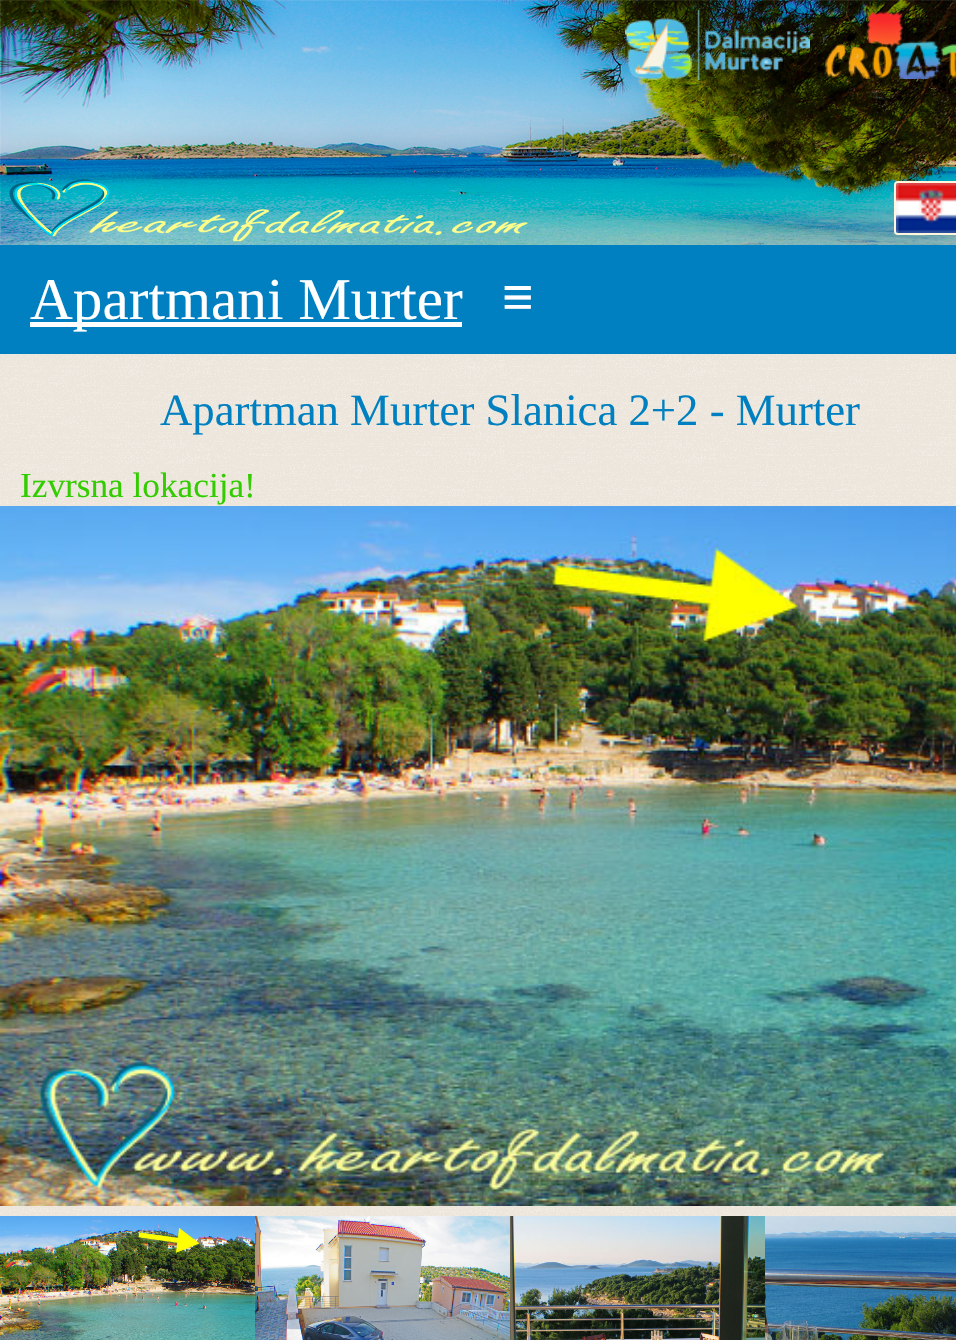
void draw(SkCanvas* canvas) {
	SkPaint fill;
	fill.setAntiAlias(true);
	auto makeFont = [&](const char* family, int weight, float size, bool italic = false) {
		SkFontStyle style(weight, SkFontStyle::kNormal_Width,
			italic ? SkFontStyle::kItalic_Slant : SkFontStyle::kUpright_Slant);
		SkFont result(fontMgr->matchFamilyStyle(family, style), size);
		result.setSubpixel(true);
		return result;
	};
	auto text = [&](const char* s, float x, float y, const SkFont& font) {
		canvas->drawString(s, x, y, font, fill);
	};
	auto box = [&](float l, float t, float r, float b) {
		canvas->drawRect(SkRect::MakeLTRB(l, t, r, b), fill);
	};
	auto picture = [&](const char* path, float l, float t, float r, float b) {
		auto image = SkImages::DeferredFromEncodedData(SkData::MakeFromFileName(path));
		canvas->drawImageRect(image, SkRect::MakeLTRB(l, t, r, b), SkSamplingOptions());
	};
	canvas->clear(0xFFFFFFFF);
	picture("image0.png", 0, 354, 956, 1216);
	picture("image1.png", 0, 0, 956, 245);
	picture("image2.png", 625, 10, 810, 80);
	picture("image3.png", 825, 11, 956, 79);
	fill.setStyle(SkPaint::kStroke_Style);
	fill.setStrokeWidth(2);
	fill.setColor(0xFFFFF6DD);
	canvas->drawRoundRect(SkRect::MakeLTRB(895, 182, 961, 234), 3, 3, fill);
	picture("image4.png", 896, 183, 956, 233);
	fill.setStyle(SkPaint::kFill_Style);
	fill.setColor(0xFF0080C0);
	box(0, 245, 956, 354);
	fill.setColor(0xFFFFFFFF);
	box(30, 322, 462, 327);
	picture("image5.png", 0, 506, 956, 1206);
	picture("image6.png", 0, 1216, 255, 1340);
	picture("image7.png", 255, 1216, 510, 1340);
	picture("image8.png", 510, 1216, 765, 1340);
	picture("image9.png", 765, 1216, 956, 1340);
	auto font1 = makeFont("Liberation Serif", 400, 59.25f);
	text("Apartmani Murter", 30, 319, font1);
	auto font2 = makeFont("Liberation Serif", 700, 56);
	text("≡", 502, 316, font2);
	auto font3 = makeFont("Liberation Serif", 400, 44.75f);
	fill.setColor(0xFF0080C0);
	text("Apartman Murter Slanica 2+2 - Murter", 160, 425, font3);
	auto font4 = makeFont("Liberation Serif", 400, 35.25f);
	fill.setColor(0xFF33CC00);
	text("Izvrsna lokacija!", 20, 497, font4);
}
